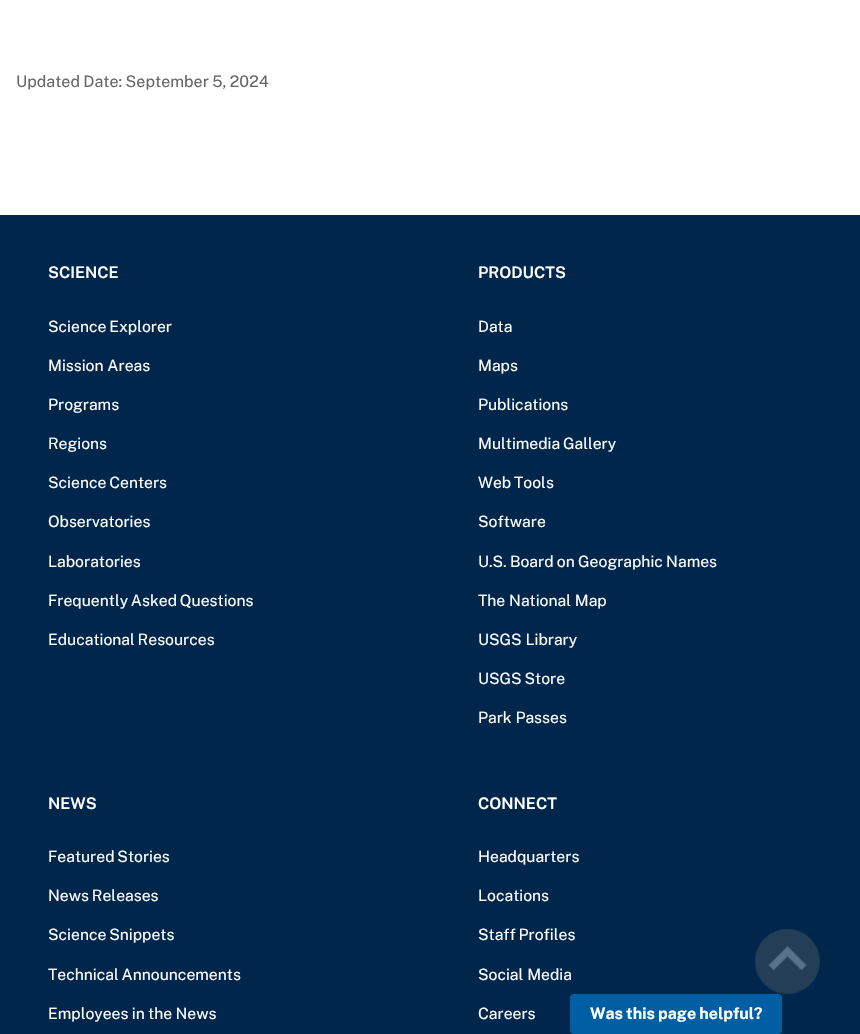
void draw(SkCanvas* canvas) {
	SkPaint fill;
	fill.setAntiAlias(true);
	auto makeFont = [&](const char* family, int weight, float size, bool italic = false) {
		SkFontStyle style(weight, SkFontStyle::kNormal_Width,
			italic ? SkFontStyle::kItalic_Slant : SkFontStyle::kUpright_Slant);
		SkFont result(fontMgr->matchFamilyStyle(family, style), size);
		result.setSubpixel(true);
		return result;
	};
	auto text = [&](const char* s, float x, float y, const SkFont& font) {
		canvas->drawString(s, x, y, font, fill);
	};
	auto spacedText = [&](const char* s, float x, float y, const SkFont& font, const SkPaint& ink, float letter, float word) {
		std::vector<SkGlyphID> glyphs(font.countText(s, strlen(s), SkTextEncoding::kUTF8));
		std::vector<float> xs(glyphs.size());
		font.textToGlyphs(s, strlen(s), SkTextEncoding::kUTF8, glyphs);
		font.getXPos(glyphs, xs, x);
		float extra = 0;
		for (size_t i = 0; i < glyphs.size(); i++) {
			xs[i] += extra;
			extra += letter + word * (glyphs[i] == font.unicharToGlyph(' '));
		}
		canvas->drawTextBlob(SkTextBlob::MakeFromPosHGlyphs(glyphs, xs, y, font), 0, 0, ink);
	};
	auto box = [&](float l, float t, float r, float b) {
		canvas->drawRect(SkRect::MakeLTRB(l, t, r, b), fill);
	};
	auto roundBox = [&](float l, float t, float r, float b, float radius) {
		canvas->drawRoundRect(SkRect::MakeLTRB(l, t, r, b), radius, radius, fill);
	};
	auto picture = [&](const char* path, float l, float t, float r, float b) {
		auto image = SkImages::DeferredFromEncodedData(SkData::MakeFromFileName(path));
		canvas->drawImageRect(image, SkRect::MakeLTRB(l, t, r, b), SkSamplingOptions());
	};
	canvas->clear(0xFFFFFFFF);
	fill.setColor(0xFF00264C);
	box(0, 215, 860, 1034);
	picture("image0.png", 755, 929, 820, 994);
	fill.setColor(0xFF005EA2);
	roundBox(570, 994, 782, 1034, 4);
	auto font1 = makeFont("Public Sans", 400, 16);
	fill.setColor(0xFF666666);
	spacedText("Updated Date: September 5, 2024", 16, 87, font1, fill, 0, -0.5f);
	auto font2 = makeFont("Public Sans", 600, 16);
	fill.setColor(0xFFFFFFFF);
	text("SCIENCE", 48, 278, font2);
	auto font3 = makeFont("Public Sans", 400, 15.7f);
	spacedText("Science Explorer", 48, 332, font3, fill, 0, -1);
	text("Mission Areas", 48, 371, font3);
	text("Programs", 48, 410, font3);
	text("Regions", 48, 449, font3);
	spacedText("Science Centers", 48, 488, font3, fill, 0, -1);
	text("Observatories", 48, 527, font3);
	text("Laboratories", 48, 567, font3);
	spacedText("Frequently Asked Questions", 48, 606, font3, fill, 0, -1);
	spacedText("Educational Resources", 48, 645, font3, fill, 0, -1);
	text("PRODUCTS", 478, 278, font2);
	text("Data", 478, 332, font3);
	text("Maps", 478, 371, font3);
	text("Publications", 478, 410, font3);
	spacedText("Multimedia Gallery", 478, 449, font3, fill, 0, -1);
	spacedText("Web Tools", 478, 488, font3, fill, 0, -1);
	text("Software", 478, 527, font3);
	spacedText("U.S. Board on Geographic Names", 478, 567, font3, fill, 0, -0.5f);
	text("The National Map", 478, 606, font3);
	text("USGS Library", 478, 645, font3);
	spacedText("USGS Store", 478, 684, font3, fill, 0, -1);
	text("Park Passes", 478, 723, font3);
	text("NEWS", 48, 809, font2);
	spacedText("Featured Stories", 48, 862, font3, fill, 0, -1);
	spacedText("News Releases", 48, 901, font3, fill, 0, -1);
	spacedText("Science Snippets", 48, 940, font3, fill, 0, -1);
	spacedText("Technical Announcements", 48, 980, font3, fill, 0, -1);
	spacedText("Employees in the News", 48, 1019, font3, fill, 0, -0.5f);
	text("CONNECT", 478, 809, font2);
	text("Headquarters", 478, 862, font3);
	text("Locations", 478, 901, font3);
	spacedText("Staff Profiles", 478, 940, font3, fill, 0, -1);
	text("Social Media", 478, 980, font3);
	text("Careers", 478, 1019, font3);
	auto font4 = makeFont("Public Sans", 700, 16);
	spacedText("Was this page helpful?", 590, 1019, font4, fill, 0, -0.5f);
}
